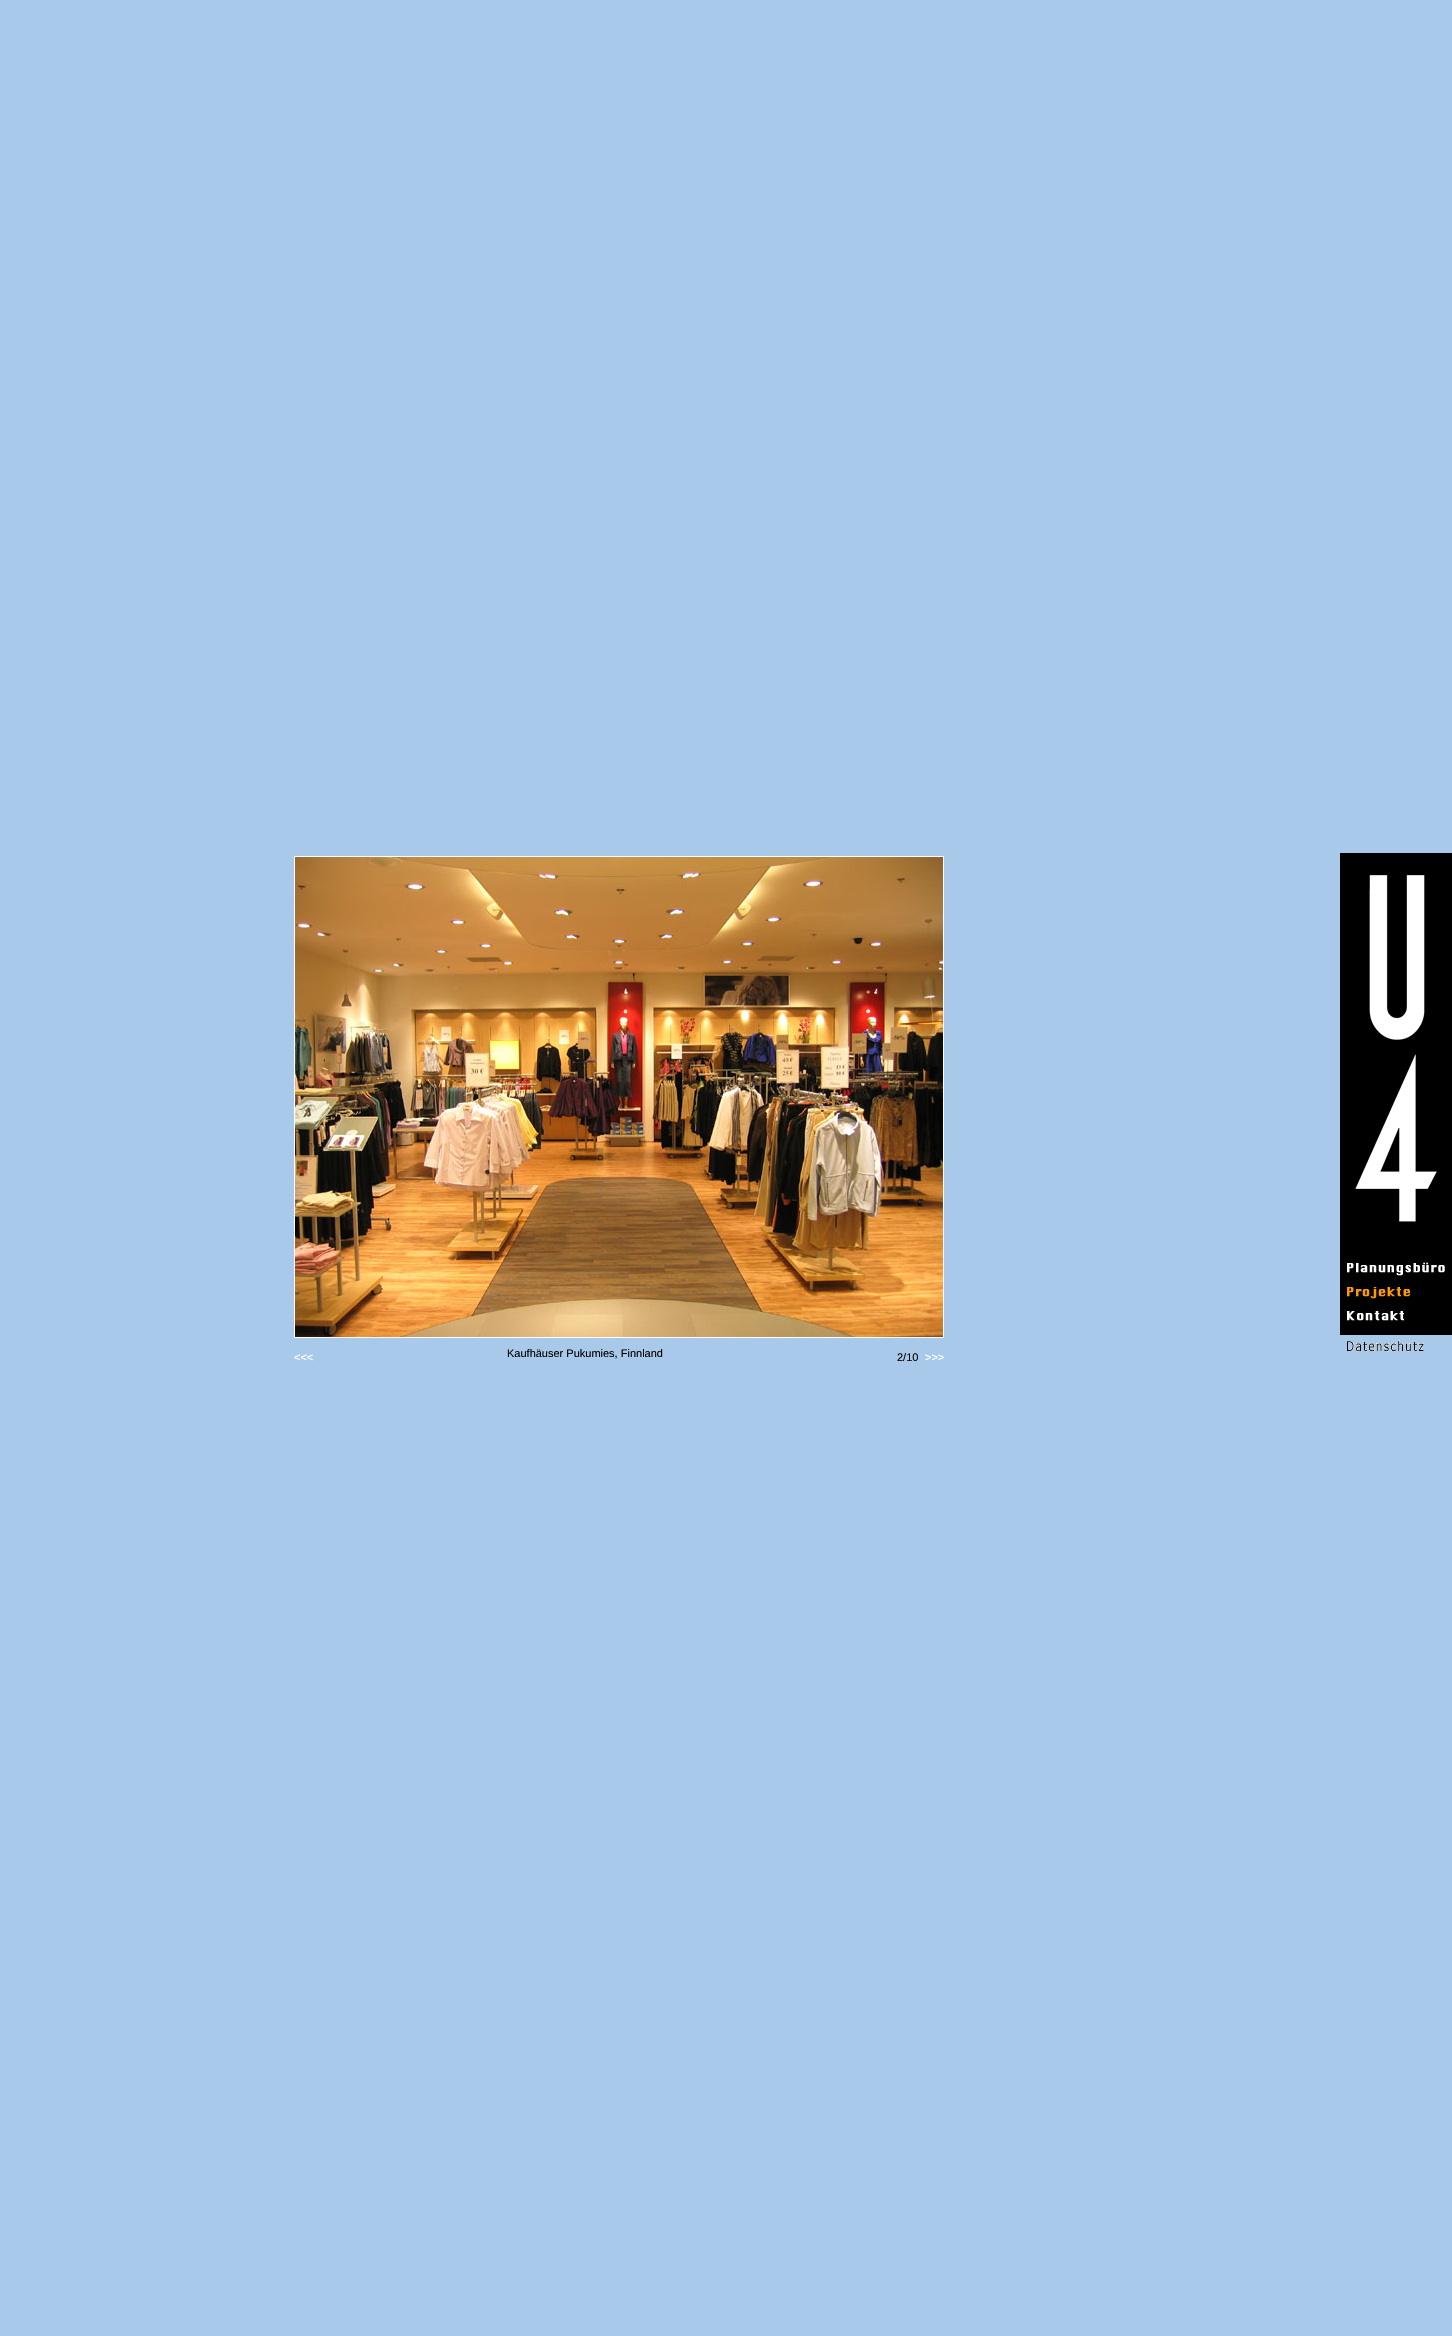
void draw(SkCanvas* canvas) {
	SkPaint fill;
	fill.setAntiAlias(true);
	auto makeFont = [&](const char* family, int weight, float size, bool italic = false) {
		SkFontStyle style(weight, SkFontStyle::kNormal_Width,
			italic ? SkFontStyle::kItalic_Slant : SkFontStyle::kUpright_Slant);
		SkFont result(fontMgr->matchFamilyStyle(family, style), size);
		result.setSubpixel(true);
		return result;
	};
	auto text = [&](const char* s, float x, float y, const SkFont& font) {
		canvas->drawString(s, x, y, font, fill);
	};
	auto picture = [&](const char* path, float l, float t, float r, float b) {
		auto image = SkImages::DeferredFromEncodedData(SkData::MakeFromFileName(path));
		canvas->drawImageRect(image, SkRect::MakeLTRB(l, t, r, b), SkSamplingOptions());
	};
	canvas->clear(0xFFA8C9EA);
	picture("image0.png", 1340, 853, 1452, 1255);
	picture("image1.png", 1340, 1255, 1452, 1280);
	picture("image2.png", 1340, 1280, 1452, 1304);
	picture("image3.png", 1340, 1304, 1452, 1335);
	picture("image4.png", 1347, 1340, 1424, 1352);
	fill.setStyle(SkPaint::kStroke_Style);
	fill.setStrokeWidth(1);
	fill.setColor(0xFFFFFFFF);
	canvas->drawRect(SkRect::MakeLTRB(294.5f, 856.5f, 943.5f, 1337.5f), fill);
	picture("image5.png", 295, 857, 943, 1337);
	auto font1 = makeFont("Liberation Sans", 400, 11);
	fill.setStyle(SkPaint::kFill_Style);
	text("<<<", 294, 1361, font1);
	fill.setColor(0xFF000000);
	text("Kaufhäuser Pukumies, Finnland", 507, 1357, font1);
	text("2/10", 897, 1361, font1);
	fill.setColor(0xFFFFFFFF);
	text(">>>", 925, 1361, font1);
}
